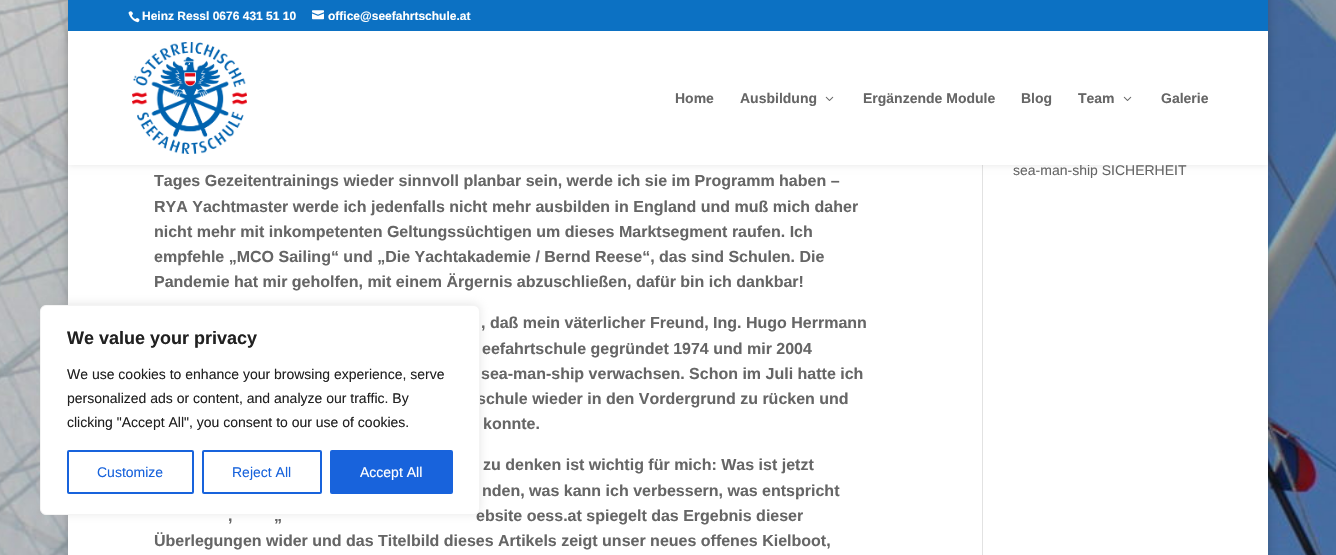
void draw(SkCanvas* canvas) {
	SkPaint fill;
	fill.setAntiAlias(true);
	auto makeFont = [&](const char* family, int weight, float size, bool italic = false) {
		SkFontStyle style(weight, SkFontStyle::kNormal_Width,
			italic ? SkFontStyle::kItalic_Slant : SkFontStyle::kUpright_Slant);
		SkFont result(fontMgr->matchFamilyStyle(family, style), size);
		result.setSubpixel(true);
		return result;
	};
	auto text = [&](const char* s, float x, float y, const SkFont& font) {
		canvas->drawString(s, x, y, font, fill);
	};
	auto box = [&](float l, float t, float r, float b) {
		canvas->drawRect(SkRect::MakeLTRB(l, t, r, b), fill);
	};
	auto picture = [&](const char* path, float l, float t, float r, float b) {
		auto image = SkImages::DeferredFromEncodedData(SkData::MakeFromFileName(path));
		canvas->drawImageRect(image, SkRect::MakeLTRB(l, t, r, b), SkSamplingOptions());
	};
	canvas->clear(0xFFFFFFFF);
	picture("image0.png", 0, 0, 1336, 555);
	fill.setColor(0x33000000);
	fill.setMaskFilter(SkMaskFilter::MakeBlur(kNormal_SkBlurStyle, 5));
	canvas->drawRect(SkRect::MakeLTRB(68, -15, 1268, 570), fill);
	fill.setMaskFilter(nullptr);
	fill.setColor(0xFFFFFFFF);
	box(68, 165, 1268, 555);
	fill.setColor(0xFFE2E2E2);
	box(982, 165, 983, 555);
	fill.setColor(0x1A000000);
	fill.setMaskFilter(SkMaskFilter::MakeBlur(kNormal_SkBlurStyle, 3.5f));
	canvas->drawRect(SkRect::MakeLTRB(68, 31, 1268, 165), fill);
	fill.setMaskFilter(nullptr);
	fill.setColor(0xFF0C71C3);
	box(68, 0, 1268, 31);
	picture("image1.png", 128, 11, 140, 23);
	picture("image2.png", 312, 10, 324, 20);
	fill.setColor(0x4DACABAB);
	fill.setMaskFilter(SkMaskFilter::MakeBlur(kNormal_SkBlurStyle, 5));
	canvas->drawRoundRect(SkRect::MakeLTRB(40, 304, 480, 514), 6, 6, fill);
	fill.setMaskFilter(nullptr);
	auto font1 = makeFont("Liberation Sans", 700, 12);
	fill.setColor(0xFFFFFFFF);
	text("Heinz Ressl 0676 431 51 10", 142, 20, font1);
	text("office@seefahrtschule.at", 328, 20, font1);
	auto font2 = makeFont("Liberation Sans", 400, 14);
	fill.setColor(0xFF666666);
	text("sea-man-ship SICHERHEIT", 1013, 175, font2);
	fill.setColor(0xFFFFFFFF);
	box(68, 31, 1268, 165);
	auto font3 = makeFont("Liberation Sans", 700, 14);
	fill.setColor(0xFF666666);
	text("Galerie", 1161, 103, font3);
	picture("image4.png", 1123, 96, 1132, 101);
	text("Team", 1078, 103, font3);
	text("Blog", 1021, 103, font3);
	text("Ergänzende Module", 863, 103, font3);
	picture("image4.png", 825, 96, 834, 101);
	text("Ausbildung", 740, 103, font3);
	text("Home", 675, 103, font3);
	picture("image3.png", 132, 42, 247, 154);
	auto font4 = makeFont("Liberation Sans", 700, 16);
	text("Tages Gezeitentrainings wieder sinnvoll planbar sein, werde ich sie im Programm haben –", 154, 186, font4);
	text("RYA Yachtmaster werde ich jedenfalls nicht mehr ausbilden in England und muß mich daher", 154, 212, font4);
	text("nicht mehr mit inkompetenten Geltungssüchtigen um dieses Marktsegment raufen. Ich", 154, 237, font4);
	text("empfehle „MCO Sailing“ und „Die Yachtakademie / Bernd Reese“, das sind Schulen. Die", 154, 262, font4);
	text("Pandemie hat mir geholfen, mit einem Ärgernis abzuschließen, dafür bin ich dankbar!", 154, 287, font4);
	text(", daß mein väterlicher Freund, Ing. Hugo Herrmann", 481, 328, font4);
	text("eefahrtschule gegründet 1974 und mir 2004", 482, 354, font4);
	text("sea-man-ship verwachsen. Schon im Juli hatte ich", 481, 379, font4);
	text("schule wieder in den Vordergrund zu rücken und", 477, 404, font4);
	text("konnte.", 483, 429, font4);
	text("zu denken ist wichtig für mich: Was ist jetzt", 483, 470, font4);
	text("nden, was kann ich verbessern, was entspricht", 482, 496, font4);
	text(",", 228, 521, font4);
	text("„", 274, 521, font4);
	text("ebsite oess.at spiegelt das Ergebnis dieser", 476, 521, font4);
	text("Überlegungen wider und das Titelbild dieses Artikels zeigt unser neues offenes Kielboot,", 154, 546, font4);
	fill.setColor(0xFFFFFFFF);
	canvas->drawRoundRect(SkRect::MakeLTRB(40.5f, 305.5f, 479.5f, 514.5f), 5.5f, 5.5f, fill);
	fill.setStyle(SkPaint::kStroke_Style);
	fill.setStrokeWidth(1);
	fill.setColor(0xFFF4F4F4);
	canvas->drawRoundRect(SkRect::MakeLTRB(40.5f, 305.5f, 479.5f, 514.5f), 5.5f, 5.5f, fill);
	auto font5 = makeFont("Liberation Sans", 700, 18);
	fill.setStyle(SkPaint::kFill_Style);
	fill.setColor(0xFF212121);
	text("We value your privacy", 67, 344, font5);
	text("We use cookies to enhance your browsing experience, serve", 67, 379, font2);
	text("personalized ads or content, and analyze our traffic. By", 67, 403, font2);
	text("clicking \"Accept All\", you consent to our use of cookies.", 67, 427, font2);
	fill.setStyle(SkPaint::kStroke_Style);
	fill.setStrokeWidth(2);
	fill.setColor(0xFF1863DC);
	canvas->drawRoundRect(SkRect::MakeLTRB(68, 451, 193, 493), 1, 1, fill);
	fill.setStyle(SkPaint::kFill_Style);
	text("Customize", 97, 477, font2);
	fill.setStyle(SkPaint::kStroke_Style);
	canvas->drawRoundRect(SkRect::MakeLTRB(203, 451, 321, 493), 1, 1, fill);
	fill.setStyle(SkPaint::kFill_Style);
	text("Reject All", 232, 477, font2);
	canvas->drawRoundRect(SkRect::MakeLTRB(331, 451, 452, 493), 1, 1, fill);
	fill.setStyle(SkPaint::kStroke_Style);
	canvas->drawRoundRect(SkRect::MakeLTRB(331, 451, 452, 493), 1, 1, fill);
	fill.setStyle(SkPaint::kFill_Style);
	fill.setColor(0xFFFFFFFF);
	text("Accept All", 360, 477, font2);
}
